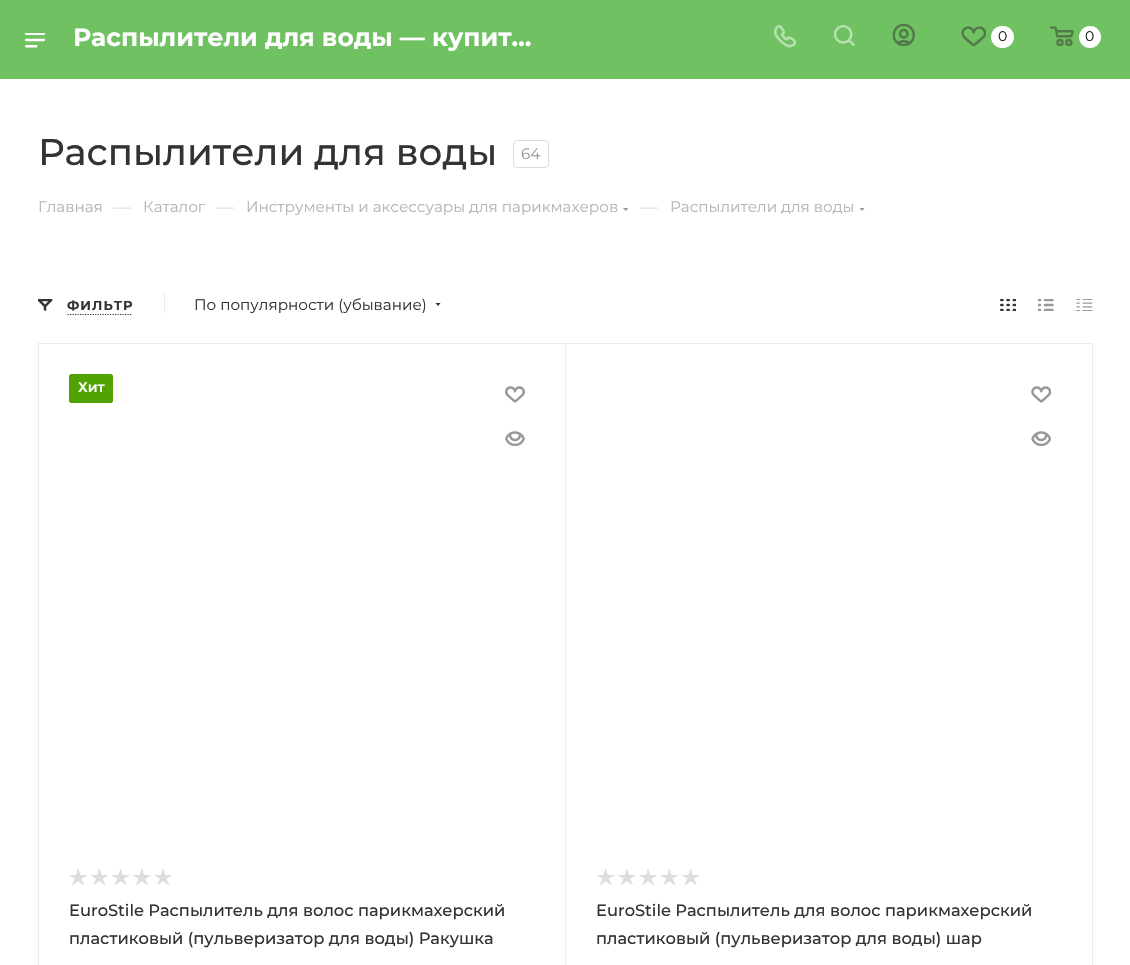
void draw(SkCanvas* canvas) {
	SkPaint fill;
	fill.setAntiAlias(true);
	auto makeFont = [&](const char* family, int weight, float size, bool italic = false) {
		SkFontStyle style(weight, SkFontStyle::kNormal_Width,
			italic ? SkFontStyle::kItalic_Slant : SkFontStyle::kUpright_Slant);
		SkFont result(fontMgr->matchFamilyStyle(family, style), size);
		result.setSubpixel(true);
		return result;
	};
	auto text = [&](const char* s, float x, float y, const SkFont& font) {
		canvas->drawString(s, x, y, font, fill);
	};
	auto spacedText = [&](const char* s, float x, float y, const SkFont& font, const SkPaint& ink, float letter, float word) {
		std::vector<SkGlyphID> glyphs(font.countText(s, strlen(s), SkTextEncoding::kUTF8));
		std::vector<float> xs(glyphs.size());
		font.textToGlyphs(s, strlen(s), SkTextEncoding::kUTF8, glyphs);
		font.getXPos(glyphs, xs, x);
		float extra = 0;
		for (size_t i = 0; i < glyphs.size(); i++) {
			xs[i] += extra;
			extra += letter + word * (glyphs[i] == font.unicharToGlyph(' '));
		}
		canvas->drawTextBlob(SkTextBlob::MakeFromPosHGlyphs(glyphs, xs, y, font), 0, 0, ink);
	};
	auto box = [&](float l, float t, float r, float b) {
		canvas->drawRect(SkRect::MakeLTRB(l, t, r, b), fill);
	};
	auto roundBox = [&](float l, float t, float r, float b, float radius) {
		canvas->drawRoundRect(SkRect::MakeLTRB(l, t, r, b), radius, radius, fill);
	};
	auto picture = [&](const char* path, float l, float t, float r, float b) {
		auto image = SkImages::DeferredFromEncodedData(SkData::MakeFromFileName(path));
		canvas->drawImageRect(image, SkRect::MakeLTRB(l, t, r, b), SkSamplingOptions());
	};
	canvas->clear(0xFFFFFFFF);
	fill.setColor(0xFF6FC162);
	box(0, 0, 1130, 79);
	picture("image0.png", 25, 33, 45, 48);
	picture("image1.png", 774, 25, 796, 48);
	picture("image2.png", 834, 25, 855, 46);
	picture("image3.png", 892, 23, 915, 47);
	picture("image4.png", 961, 26, 986, 47);
	fill.setColor(0xFFFFFFFF);
	roundBox(991, 26, 1014, 48, 11);
	picture("image5.png", 1050, 26, 1074, 47);
	canvas->drawCircle(1090, 37, 11, fill);
	fill.setStyle(SkPaint::kStroke_Style);
	fill.setStrokeWidth(1);
	fill.setColor(0xFFDBDBDB);
	canvas->drawRoundRect(SkRect::MakeLTRB(513.5f, 140.5f, 548.5f, 167.5f), 3.5f, 3.5f, fill);
	canvas->save();
	canvas->clipRect(SkRect::MakeLTRB(623, 208, 629, 212));
	fill.setStyle(SkPaint::kFill_Style);
	fill.setColor(0xFF999999);
	canvas->drawPath(SkPathBuilder(SkPathFillType::kEvenOdd).moveTo(622.5f, 207.5f).lineTo(629, 207.5f).lineTo(625.5f, 211).close().detach(), fill);
	canvas->restore();
	canvas->save();
	canvas->clipRect(SkRect::MakeLTRB(859, 208, 865, 212));
	canvas->drawPath(SkPathBuilder(SkPathFillType::kEvenOdd).moveTo(859, 207.5f).lineTo(865, 207.5f).lineTo(862, 211).close().detach(), fill);
	canvas->restore();
	picture("image6.png", 38, 299, 53, 311);
	fill.setStyle(SkPaint::kStroke_Style);
	fill.setStrokeWidth(1.2f);
	fill.setColor(0xFF333333);
	fill.setPathEffect(SkDashPathEffect::Make({{1.25f, 1.25f}}, 0));
	canvas->drawPath(SkPathBuilder().moveTo(67.5f, 314.5f).lineTo(132.5f, 314.5f).detach(), fill);
	fill.setPathEffect(nullptr);
	fill.setStyle(SkPaint::kFill_Style);
	fill.setColor(0xFFECECEC);
	box(164, 293, 165, 313);
	canvas->save();
	canvas->clipRect(SkRect::MakeLTRB(435, 303, 441, 307));
	fill.setColor(0xFF333333);
	canvas->drawPath(SkPathBuilder(SkPathFillType::kEvenOdd).moveTo(435, 302.5f).lineTo(441, 302.5f).lineTo(438, 306).close().detach(), fill);
	canvas->restore();
	picture("image7.png", 1000, 299, 1016, 311);
	picture("image8.png", 1038, 299, 1054, 311);
	picture("image9.png", 1076, 299, 1093, 311);
	fill.setStyle(SkPaint::kStroke_Style);
	fill.setStrokeWidth(1);
	fill.setColor(0xFFECECEC);
	canvas->drawRect(SkRect::MakeLTRB(38.5f, 343.5f, 565.5f, 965.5f), fill);
	fill.setStyle(SkPaint::kFill_Style);
	fill.setColor(0xFF51A302);
	roundBox(69, 374, 113, 403, 2.5f);
	picture("image10.png", 505, 386, 525, 403);
	picture("image11.png", 505, 431, 525, 446);
	picture("image12.png", 69, 869, 87, 885);
	picture("image13.png", 90, 869, 108, 885);
	picture("image14.png", 112, 869, 130, 885);
	picture("image15.png", 133, 869, 151, 885);
	picture("image12.png", 154, 869, 172, 885);
	fill.setStyle(SkPaint::kStroke_Style);
	fill.setColor(0xFFECECEC);
	canvas->drawRect(SkRect::MakeLTRB(565.5f, 343.5f, 1092.5f, 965.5f), fill);
	picture("image16.png", 1031, 386, 1051, 403);
	picture("image17.png", 1031, 431, 1051, 446);
	picture("image14.png", 597, 869, 615, 885);
	picture("image15.png", 618, 869, 636, 885);
	picture("image12.png", 639, 869, 657, 885);
	picture("image13.png", 660, 869, 678, 885);
	picture("image14.png", 682, 869, 700, 885);
	auto font1 = makeFont("Montserrat", 700, 25);
	fill.setStyle(SkPaint::kFill_Style);
	fill.setColor(0xFFFFFFFF);
	text("Распылители для воды — купит…", 73, 46, font1);
	auto font2 = makeFont("Montserrat", 400, 14);
	fill.setColor(0xFF222222);
	text("0", 998, 41, font2);
	text("0", 1085, 41, font2);
	auto font3 = makeFont("Montserrat", 500, 37.25f);
	fill.setColor(0xFF333333);
	text("Распылители для воды", 38, 165, font3);
	auto font4 = makeFont("Montserrat", 400, 15.2f);
	fill.setColor(0xFF999999);
	text("64", 521, 159, font4);
	fill.setColor(0xFFB6B5B5);
	text("Главная", 38, 212, font4);
	auto font5 = makeFont("Montserrat", 400, 18);
	fill.setColor(0xFFDDDDDD);
	text("—", 113, 213, font5);
	fill.setColor(0xFFB6B5B5);
	text("Каталог", 143, 212, font4);
	fill.setColor(0xFFDDDDDD);
	text("—", 216, 213, font5);
	fill.setColor(0xFFB6B5B5);
	text("Инструменты и аксессуары для парикмахеров", 246, 212, font4);
	fill.setColor(0xFFDDDDDD);
	text("—", 640, 213, font5);
	fill.setColor(0xFFB6B5B5);
	text("Распылители для воды", 670, 212, font4);
	auto font6 = makeFont("Montserrat", 700, 13);
	fill.setColor(0xFF333333);
	spacedText("ФИЛЬТР", 67, 310, font6, fill, 1, 0);
	text("По популярности (убывание)", 194, 310, font4);
	auto font7 = makeFont("Montserrat", 600, 14);
	fill.setColor(0xFFFFFFFF);
	text("Хит", 78, 392, font7);
	auto font8 = makeFont("Montserrat", 500, 16.3f);
	fill.setColor(0xFF333333);
	text("EuroStile Распылитель для волос парикмахерский", 69, 916, font8);
	text("пластиковый (пульверизатор для воды) Ракушка", 69, 944, font8);
	text("EuroStile Распылитель для волос парикмахерский", 596, 916, font8);
	text("пластиковый (пульверизатор для воды) шар", 596, 944, font8);
}
